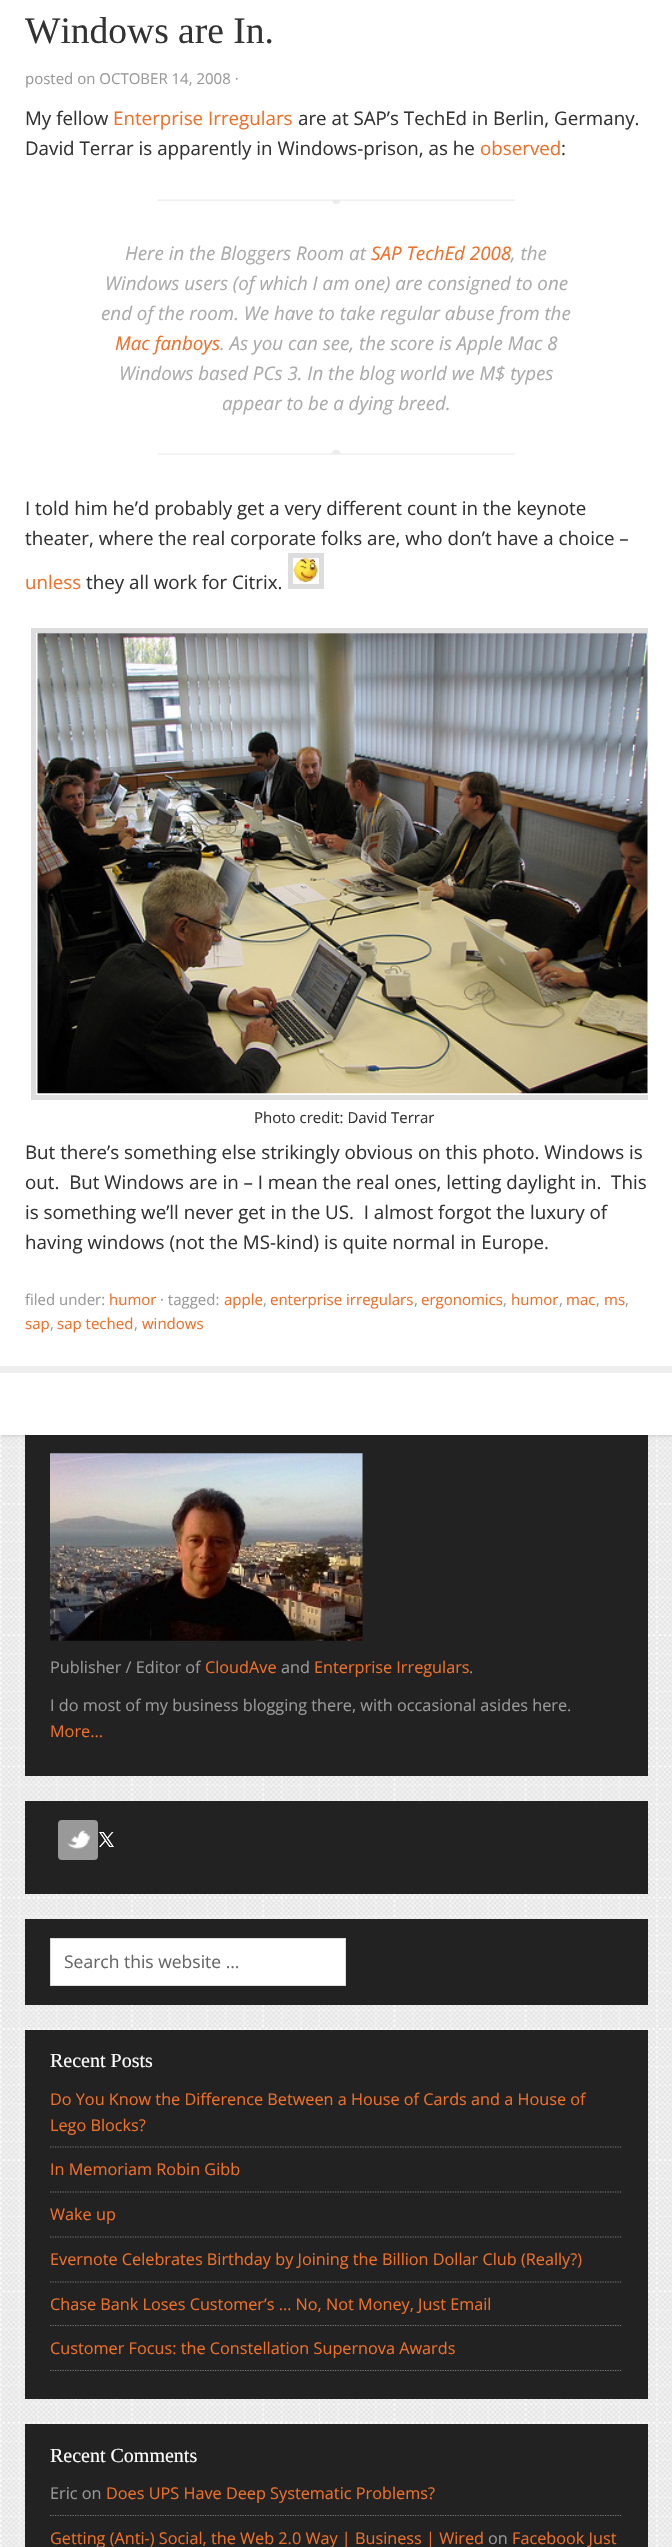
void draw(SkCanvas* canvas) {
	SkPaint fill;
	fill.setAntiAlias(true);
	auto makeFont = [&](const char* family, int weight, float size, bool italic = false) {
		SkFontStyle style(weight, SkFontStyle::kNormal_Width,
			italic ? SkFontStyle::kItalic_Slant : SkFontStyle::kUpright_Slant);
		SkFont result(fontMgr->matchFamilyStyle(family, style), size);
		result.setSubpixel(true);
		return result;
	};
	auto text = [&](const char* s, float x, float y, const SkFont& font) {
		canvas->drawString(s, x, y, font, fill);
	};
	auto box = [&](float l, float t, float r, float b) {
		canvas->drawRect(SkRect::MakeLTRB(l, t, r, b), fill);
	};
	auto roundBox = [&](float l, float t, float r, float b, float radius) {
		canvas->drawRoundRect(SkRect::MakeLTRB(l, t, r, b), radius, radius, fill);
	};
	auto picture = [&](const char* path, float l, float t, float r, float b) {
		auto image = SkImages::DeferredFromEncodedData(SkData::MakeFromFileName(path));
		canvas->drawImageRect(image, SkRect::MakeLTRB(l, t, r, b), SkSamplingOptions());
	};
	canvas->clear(0xFFFFFFFF);
	picture("image0.png", 0, 1435, 672, 2547);
	fill.setColor(0xFFBBBBBB);
	fill.setMaskFilter(SkMaskFilter::MakeBlur(kNormal_SkBlurStyle, 2));
	canvas->drawRect(SkRect::MakeLTRB(0, -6, 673, 1435), fill);
	fill.setMaskFilter(nullptr);
	fill.setColor(0xFFFFFFFF);
	box(0, 0, 672, 1435);
	fill.setColor(0xFFEEEEEE);
	box(0, 1366, 672, 1373);
	picture("image1.png", 157, 199, 515, 455);
	fill.setStyle(SkPaint::kStroke_Style);
	fill.setStrokeWidth(5);
	fill.setColor(0xFFDDDDDD);
	canvas->drawRect(SkRect::MakeLTRB(290.5f, 555.5f, 321.5f, 586.5f), fill);
	picture("image2.png", 293, 558, 318, 582);
	canvas->save();
	canvas->clipRect(SkRect::MakeLTRB(25, 103, 648, 1288));
	canvas->drawRect(SkRect::MakeLTRB(33.5f, 630.5f, 653.5f, 1097.5f), fill);
	canvas->restore();
	picture("image3.png", 37, 633, 648, 1094);
	fill.setStyle(SkPaint::kFill_Style);
	fill.setColor(0xFF222222);
	box(25, 1435, 648, 1776);
	picture("image4.png", 50, 1453, 363, 1641);
	box(25, 1801, 648, 1894);
	fill.setColor(0xFF999999);
	roundBox(58, 1820, 98, 1860, 4);
	picture("image5.png", 67, 1830, 114, 1849);
	picture("image6.png", 99, 1832, 114, 1847);
	fill.setColor(0xFF222222);
	box(25, 1919, 648, 2005);
	fill.setColor(0xFFFFFFFF);
	canvas->drawRect(SkRect::MakeLTRB(50.5f, 1938.5f, 345.5f, 1985.5f), fill);
	fill.setStyle(SkPaint::kStroke_Style);
	fill.setStrokeWidth(1);
	fill.setColor(0xFFDDDDDD);
	canvas->drawRect(SkRect::MakeLTRB(50.5f, 1938.5f, 345.5f, 1985.5f), fill);
	fill.setStyle(SkPaint::kFill_Style);
	fill.setColor(0xFF222222);
	box(25, 2030, 648, 2399);
	fill.setStyle(SkPaint::kStroke_Style);
	fill.setStrokeWidth(1.2f);
	fill.setColor(0xFF777777);
	fill.setPathEffect(SkDashPathEffect::Make({{1.25f, 1.25f}}, 0));
	canvas->drawPath(SkPathBuilder().moveTo(50, 2147).lineTo(622.5f, 2147).detach(), fill);
	fill.setPathEffect(nullptr);
	fill.setPathEffect(SkDashPathEffect::Make({{1.25f, 1.25f}}, 0));
	canvas->drawPath(SkPathBuilder().moveTo(50, 2192).lineTo(622.5f, 2192).detach(), fill);
	fill.setPathEffect(nullptr);
	fill.setPathEffect(SkDashPathEffect::Make({{1.25f, 1.25f}}, 0));
	canvas->drawPath(SkPathBuilder().moveTo(50, 2237).lineTo(622.5f, 2237).detach(), fill);
	fill.setPathEffect(nullptr);
	fill.setPathEffect(SkDashPathEffect::Make({{1.25f, 1.25f}}, 0));
	canvas->drawPath(SkPathBuilder().moveTo(50, 2282).lineTo(622.5f, 2282).detach(), fill);
	fill.setPathEffect(nullptr);
	fill.setPathEffect(SkDashPathEffect::Make({{1.25f, 1.25f}}, 0));
	canvas->drawPath(SkPathBuilder().moveTo(50, 2325.5f).lineTo(622.5f, 2325.5f).detach(), fill);
	fill.setPathEffect(nullptr);
	fill.setPathEffect(SkDashPathEffect::Make({{1.25f, 1.25f}}, 0));
	canvas->drawPath(SkPathBuilder().moveTo(50, 2370.5f).lineTo(622.5f, 2370.5f).detach(), fill);
	fill.setPathEffect(nullptr);
	fill.setStyle(SkPaint::kFill_Style);
	fill.setColor(0xFF222222);
	box(25, 2424, 648, 2547);
	fill.setStyle(SkPaint::kStroke_Style);
	fill.setColor(0xFF777777);
	fill.setPathEffect(SkDashPathEffect::Make({{1.25f, 1.25f}}, 0));
	canvas->drawPath(SkPathBuilder().moveTo(50, 2515.5f).lineTo(622.5f, 2515.5f).detach(), fill);
	fill.setPathEffect(nullptr);
	auto font1 = makeFont("Liberation Serif", 400, 37.5f);
	fill.setStyle(SkPaint::kFill_Style);
	fill.setColor(0xFF333333);
	text("Windows are In.", 25, 43, font1);
	auto font2 = makeFont("Open Sans", 400, 15);
	fill.setColor(0xFF999999);
	text("posted on OCTOBER 14, 2008 ·", 25, 84, font2);
	auto font3 = makeFont("Open Sans", 400, 18.75f);
	fill.setColor(0xFF333333);
	text("My fellow", 25, 125, font3);
	fill.setColor(0xFFED702B);
	text("Enterprise Irregulars", 113, 125, font3);
	fill.setColor(0xFF333333);
	text("are at SAP’s TechEd in Berlin, Germany.", 298, 125, font3);
	text("David Terrar is apparently in Windows-prison, as he", 25, 155, font3);
	fill.setColor(0xFFED702B);
	text("observed", 480, 155, font3);
	fill.setColor(0xFF333333);
	text(":", 561, 155, font3);
	auto font4 = makeFont("Open Sans", 400, 18.75f, true);
	fill.setColor(0xFFAAAAAA);
	text("Here in the Bloggers Room at", 125, 260, font4);
	fill.setColor(0xFFED702B);
	text("SAP TechEd 2008", 371, 260, font4);
	fill.setColor(0xFFAAAAAA);
	text(", the", 511, 260, font4);
	text("Windows users (of which I am one) are consigned to one", 105, 290, font4);
	text("end of the room. We have to take regular abuse from the", 101, 320, font4);
	fill.setColor(0xFFED702B);
	text("Mac fanboys", 115, 350, font4);
	fill.setColor(0xFFAAAAAA);
	text(". As you can see, the score is Apple Mac 8", 220, 350, font4);
	text("Windows based PCs 3. In the blog world we M$ types", 119, 380, font4);
	text("appear to be a dying breed.", 222, 410, font4);
	fill.setColor(0xFF333333);
	text("I told him he’d probably get a very different count in the keynote", 25, 515, font3);
	text("theater, where the real corporate folks are, who don’t have a choice –", 25, 545, font3);
	fill.setColor(0xFFED702B);
	text("unless", 25, 589, font3);
	fill.setColor(0xFF333333);
	text("they all work for Citrix.", 86, 589, font3);
	text("Photo credit: David Terrar", 254, 1123, font2);
	text("But there’s something else strikingly obvious on this photo. Windows is", 25, 1159, font3);
	text("out.  But Windows are in – I mean the real ones, letting daylight in.  This", 25, 1189, font3);
	text("is something we’ll never get in the US.  I almost forgot the luxury of", 25, 1219, font3);
	text("having windows (not the MS-kind) is quite normal in Europe.", 25, 1249, font3);
	fill.setColor(0xFF999999);
	text("filed under:", 25, 1305, font2);
	fill.setColor(0xFFED702B);
	text("humor", 109, 1305, font2);
	fill.setColor(0xFF999999);
	text("· tagged:", 160, 1305, font2);
	fill.setColor(0xFFED702B);
	text("apple", 224, 1305, font2);
	fill.setColor(0xFF999999);
	text(",", 263, 1305, font2);
	fill.setColor(0xFFED702B);
	text("enterprise irregulars", 270, 1305, font2);
	fill.setColor(0xFF999999);
	text(",", 414, 1305, font2);
	fill.setColor(0xFFED702B);
	text("ergonomics", 421, 1305, font2);
	fill.setColor(0xFF999999);
	text(",", 503, 1305, font2);
	fill.setColor(0xFFED702B);
	text("humor", 511, 1305, font2);
	fill.setColor(0xFF999999);
	text(",", 559, 1305, font2);
	fill.setColor(0xFFED702B);
	text("mac", 566, 1305, font2);
	fill.setColor(0xFF999999);
	text(",", 596, 1305, font2);
	fill.setColor(0xFFED702B);
	text("ms", 604, 1305, font2);
	fill.setColor(0xFF999999);
	text(",", 625, 1305, font2);
	fill.setColor(0xFFED702B);
	text("sap", 25, 1329, font2);
	fill.setColor(0xFF999999);
	text(",", 50, 1329, font2);
	fill.setColor(0xFFED702B);
	text("sap teched", 57, 1329, font2);
	fill.setColor(0xFF999999);
	text(",", 134, 1329, font2);
	fill.setColor(0xFFED702B);
	text("windows", 142, 1329, font2);
	auto font5 = makeFont("Open Sans", 400, 16.25f);
	fill.setColor(0xFF999999);
	text("Publisher / Editor of", 50, 1673, font5);
	fill.setColor(0xFFED702B);
	text("CloudAve", 205, 1673, font5);
	fill.setColor(0xFF999999);
	text("and", 281, 1673, font5);
	fill.setColor(0xFFED702B);
	text("Enterprise Irregulars", 314, 1673, font5);
	fill.setColor(0xFF999999);
	text(".", 469, 1673, font5);
	text("I do most of my business blogging there, with occasional asides here.", 50, 1711, font5);
	fill.setColor(0xFFED702B);
	text("More...", 50, 1737, font5);
	auto font6 = makeFont("Open Sans", 400, 17.5f);
	fill.setColor(0xFF666666);
	text("Search this website …", 64, 1968, font6);
	auto font7 = makeFont("Liberation Serif", 400, 20);
	fill.setColor(0xFFFFFFFF);
	text("Recent Posts", 50, 2067, font7);
	fill.setColor(0xFFED702B);
	text("Do You Know the Difference Between a House of Cards and a House of", 50, 2105, font5);
	text("Lego Blocks?", 50, 2131, font5);
	text("In Memoriam Robin Gibb", 50, 2175, font5);
	text("Wake up", 50, 2220, font5);
	text("Evernote Celebrates Birthday by Joining the Billion Dollar Club (Really?)", 50, 2265, font5);
	text("Chase Bank Loses Customer’s … No, Not Money, Just Email", 50, 2310, font5);
	text("Customer Focus: the Constellation Supernova Awards", 50, 2354, font5);
	fill.setColor(0xFFFFFFFF);
	text("Recent Comments", 50, 2462, font7);
	fill.setColor(0xFF999999);
	text("Eric on", 50, 2499, font5);
	fill.setColor(0xFFED702B);
	text("Does UPS Have Deep Systematic Problems?", 106, 2499, font5);
	text("Getting (Anti-) Social, the Web 2.0 Way | Business | Wired", 50, 2544, font5);
	fill.setColor(0xFF999999);
	text("on", 488, 2544, font5);
	fill.setColor(0xFFED702B);
	text("Facebook Just", 512, 2544, font5);
}
